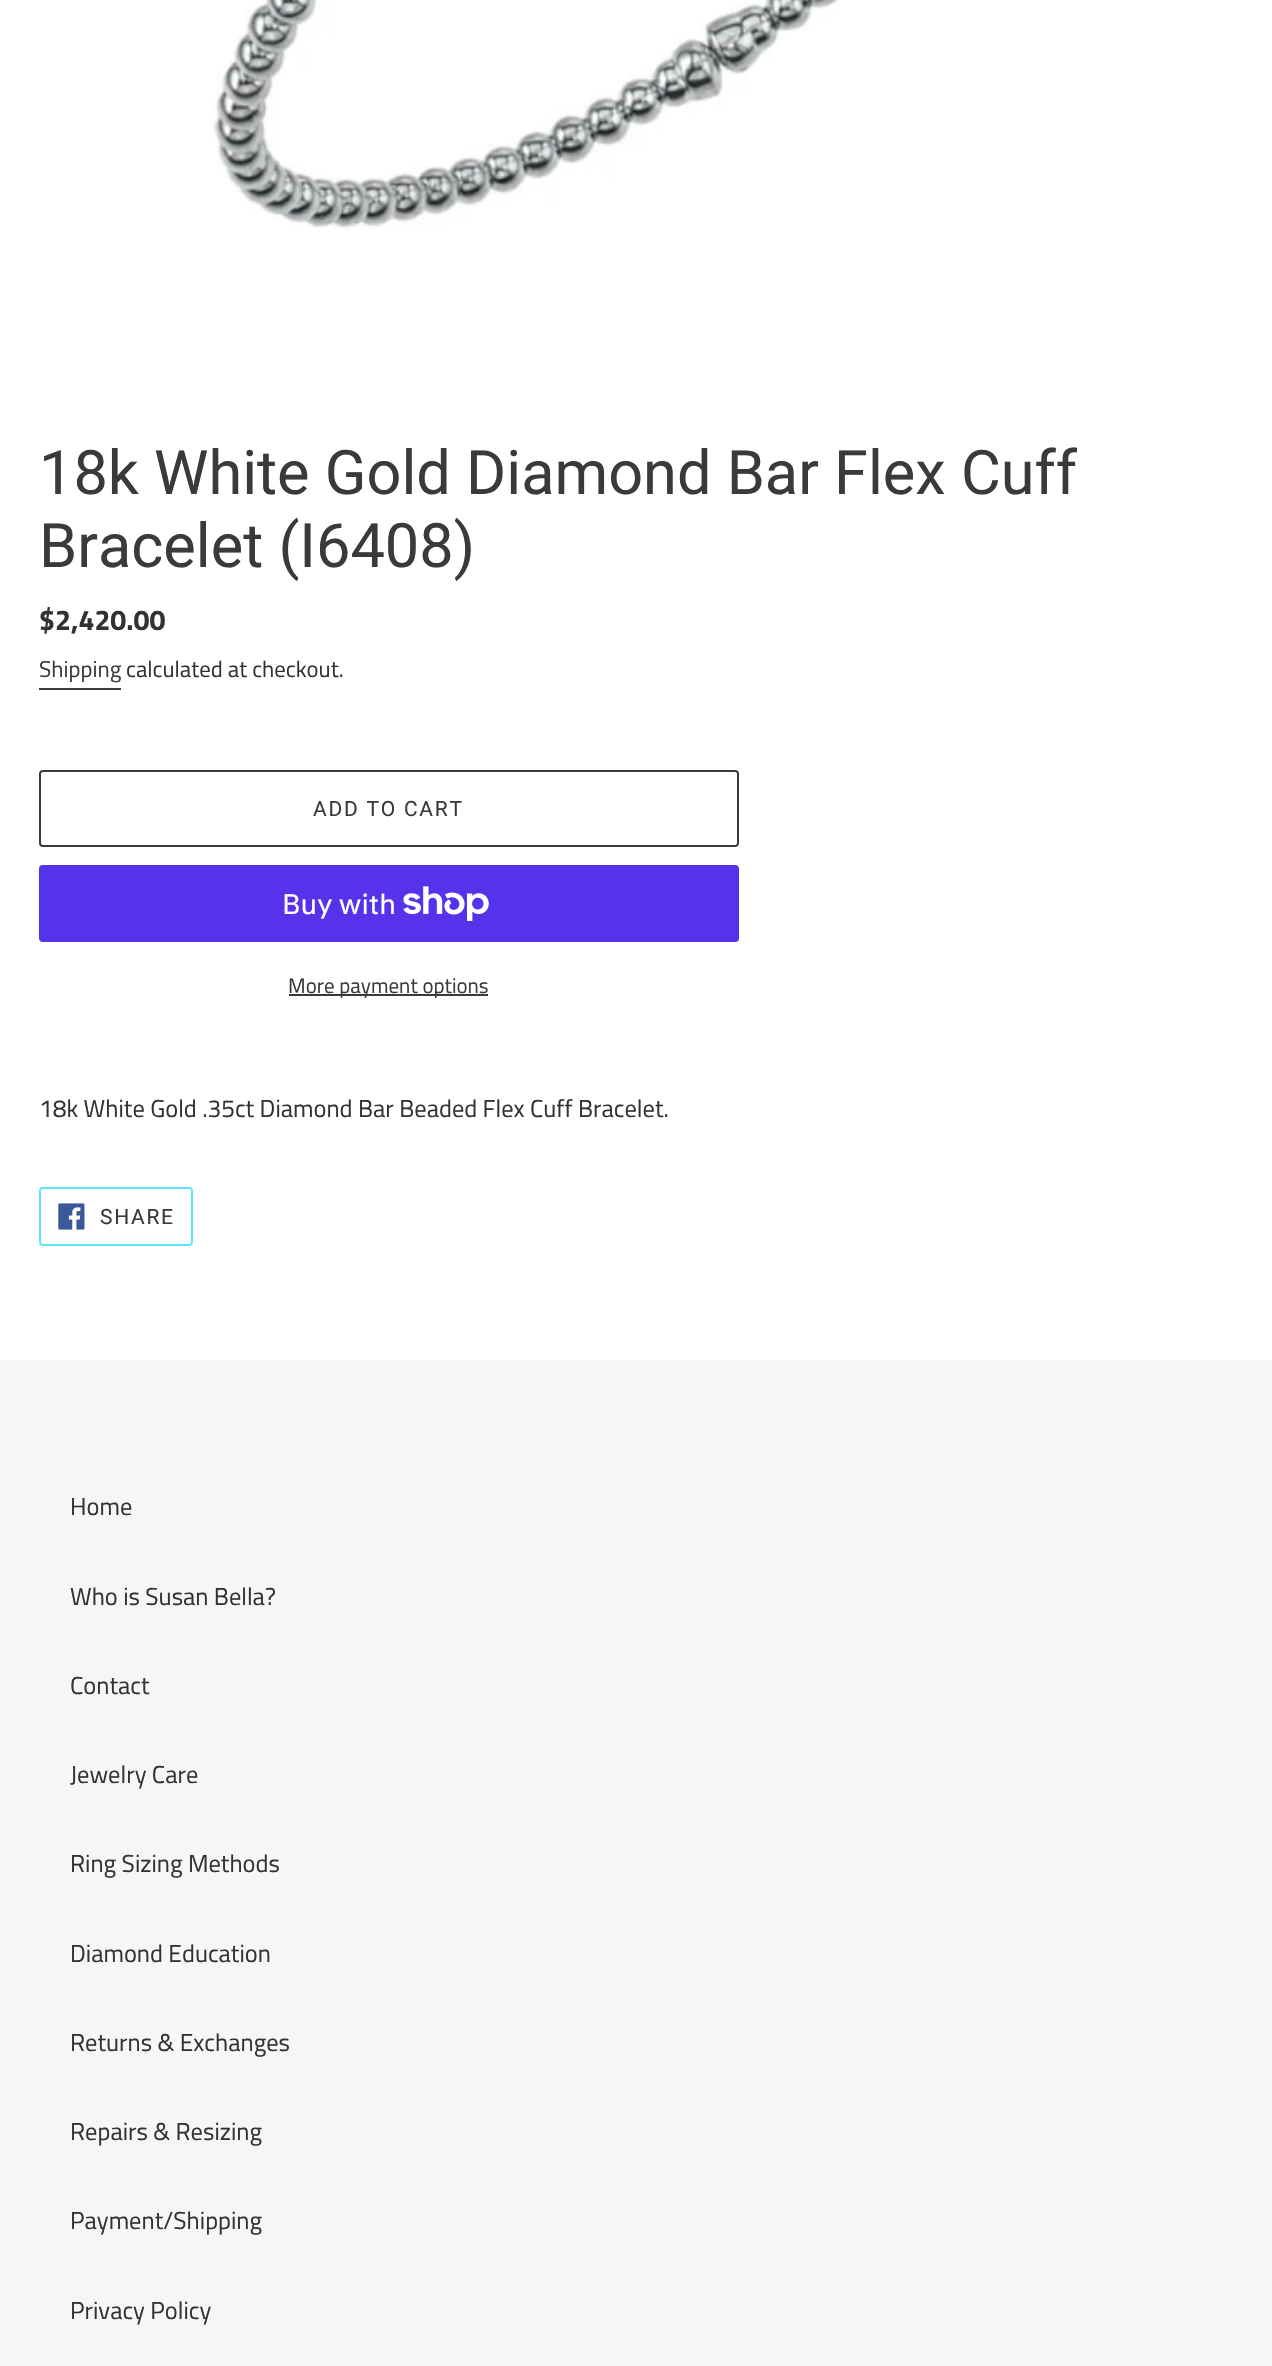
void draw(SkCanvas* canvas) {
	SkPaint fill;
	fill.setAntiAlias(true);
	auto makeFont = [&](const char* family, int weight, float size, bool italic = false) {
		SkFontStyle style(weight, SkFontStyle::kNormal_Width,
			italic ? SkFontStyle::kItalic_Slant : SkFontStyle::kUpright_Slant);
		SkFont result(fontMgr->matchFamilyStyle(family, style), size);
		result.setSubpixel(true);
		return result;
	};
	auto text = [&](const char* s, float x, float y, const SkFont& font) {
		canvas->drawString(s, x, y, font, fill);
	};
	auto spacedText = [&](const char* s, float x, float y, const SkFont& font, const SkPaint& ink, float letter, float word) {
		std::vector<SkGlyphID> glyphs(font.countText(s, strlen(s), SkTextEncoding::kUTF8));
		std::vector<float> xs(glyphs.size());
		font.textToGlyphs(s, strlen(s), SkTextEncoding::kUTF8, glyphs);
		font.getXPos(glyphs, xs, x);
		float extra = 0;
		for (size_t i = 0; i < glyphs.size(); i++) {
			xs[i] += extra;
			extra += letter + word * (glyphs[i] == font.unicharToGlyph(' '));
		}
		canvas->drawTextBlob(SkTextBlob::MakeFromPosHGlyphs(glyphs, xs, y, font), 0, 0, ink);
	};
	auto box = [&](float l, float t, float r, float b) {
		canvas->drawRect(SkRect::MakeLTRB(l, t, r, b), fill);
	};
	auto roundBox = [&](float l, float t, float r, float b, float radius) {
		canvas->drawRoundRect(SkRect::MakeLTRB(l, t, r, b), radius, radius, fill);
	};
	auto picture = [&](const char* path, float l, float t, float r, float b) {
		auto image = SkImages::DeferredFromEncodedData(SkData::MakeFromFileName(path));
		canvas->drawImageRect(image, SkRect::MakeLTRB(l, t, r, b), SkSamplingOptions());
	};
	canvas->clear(0xFFFFFFFF);
	picture("image0.png", 212, 0, 840, 229);
	fill.setColor(0xFF3A3A3A);
	box(39, 688, 121, 690);
	fill.setStyle(SkPaint::kStroke_Style);
	fill.setStrokeWidth(2);
	canvas->drawRoundRect(SkRect::MakeLTRB(40, 771, 738, 846), 3, 3, fill);
	fill.setStyle(SkPaint::kFill_Style);
	fill.setColor(0xFF5433EB);
	roundBox(39, 865, 739, 942, 4);
	picture("image1.png", 403, 886, 489, 921);
	fill.setColor(0xFF3A3A3A);
	box(289, 994, 488, 996);
	fill.setStyle(SkPaint::kStroke_Style);
	fill.setColor(0xFF5FE8FD);
	canvas->drawRoundRect(SkRect::MakeLTRB(40, 1188, 192, 1245), 3, 3, fill);
	picture("image2.png", 58, 1203, 85, 1230);
	fill.setStyle(SkPaint::kFill_Style);
	fill.setColor(0xFFF6F6F6);
	box(0, 1360, 1272, 2366);
	auto font1 = makeFont("Roboto", 400, 61.25f);
	fill.setColor(0xFF3A3A3A);
	text("18k White Gold Diamond Bar Flex Cuff", 39, 494, font1);
	text("Bracelet (I6408)", 39, 567, font1);
	auto font2 = makeFont("Titillium Web", 700, 28.5f);
	fill.setColor(0xFF333232);
	text("$2,420.00", 39, 630, font2);
	auto font3 = makeFont("Titillium Web", 400, 22.75f);
	fill.setColor(0xFF3A3A3A);
	text("Shipping", 39, 677, font3);
	fill.setColor(0xFF333232);
	text("calculated at checkout.", 126, 677, font3);
	auto font4 = makeFont("Roboto", 400, 21);
	fill.setColor(0xFF3A3A3A);
	spacedText("ADD TO CART", 313, 816, font4, fill, 1.75f, 0);
	auto font5 = makeFont("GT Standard", 400, 28);
	fill.setColor(0xFFFFFFFF);
	text("Buy with", 282, 914, font5);
	auto font6 = makeFont("Titillium Web", 400, 21);
	fill.setColor(0xFF3A3A3A);
	text("More payment options", 288, 993, font6);
	auto font7 = makeFont("Titillium Web", 400, 24.5f);
	fill.setColor(0xFF333232);
	text("18k White Gold .35ct Diamond Bar Beaded Flex Cuff Bracelet.", 39, 1117, font7);
	fill.setColor(0xFF3A3A3A);
	spacedText("SHARE", 100, 1224, font4, fill, 1.75f, 0);
	fill.setColor(0xFF333232);
	text("Home", 70, 1515, font7);
	text("Who is Susan Bella?", 70, 1605, font7);
	text("Contact", 70, 1694, font7);
	text("Jewelry Care", 70, 1783, font7);
	text("Ring Sizing Methods", 70, 1872, font7);
	text("Diamond Education", 70, 1962, font7);
	text("Returns & Exchanges", 70, 2051, font7);
	text("Repairs & Resizing", 70, 2140, font7);
	text("Payment/Shipping", 70, 2229, font7);
	text("Privacy Policy", 70, 2319, font7);
}
